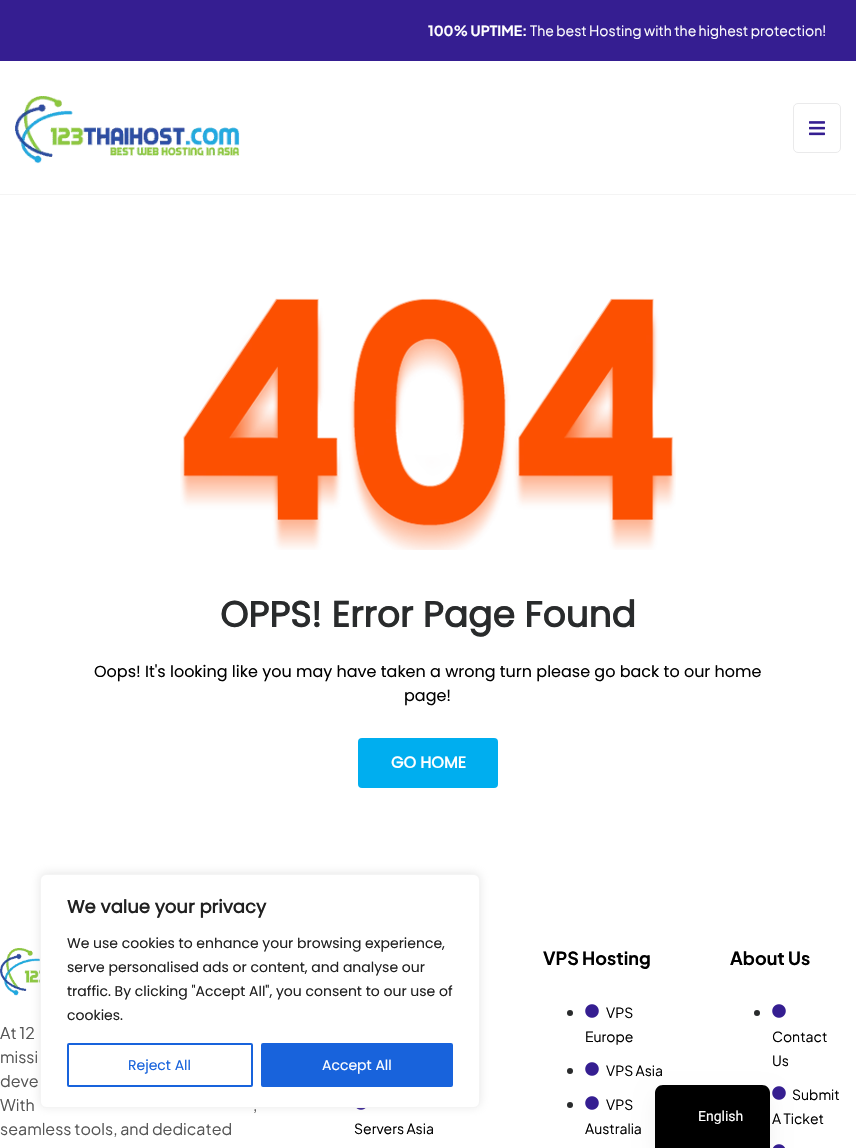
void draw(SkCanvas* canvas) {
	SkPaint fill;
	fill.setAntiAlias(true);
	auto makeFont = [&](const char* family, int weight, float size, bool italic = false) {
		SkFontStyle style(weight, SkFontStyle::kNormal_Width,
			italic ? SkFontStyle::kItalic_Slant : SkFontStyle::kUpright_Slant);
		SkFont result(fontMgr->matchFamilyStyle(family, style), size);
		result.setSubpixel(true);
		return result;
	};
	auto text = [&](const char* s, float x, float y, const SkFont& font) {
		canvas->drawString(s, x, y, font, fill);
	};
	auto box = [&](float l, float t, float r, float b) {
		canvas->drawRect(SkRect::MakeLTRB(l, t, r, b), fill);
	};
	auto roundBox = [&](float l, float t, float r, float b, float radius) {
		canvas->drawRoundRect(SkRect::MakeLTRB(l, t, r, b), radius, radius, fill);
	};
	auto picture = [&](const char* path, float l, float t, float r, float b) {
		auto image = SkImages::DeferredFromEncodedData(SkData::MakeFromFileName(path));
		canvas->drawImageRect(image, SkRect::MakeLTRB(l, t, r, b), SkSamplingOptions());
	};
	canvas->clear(0xFFFFFFFF);
	fill.setColor(0xFF351E91);
	box(0, 0, 856, 61);
	fill.setColor(0xFFF4F4F4);
	box(0, 194, 856, 195);
	picture("image0.png", 15, 96, 240, 164);
	fill.setStyle(SkPaint::kStroke_Style);
	fill.setStrokeWidth(1);
	fill.setColor(0xFFEAEAEB);
	canvas->drawRoundRect(SkRect::MakeLTRB(793.5f, 103.5f, 840.5f, 152.5f), 4.5f, 4.5f, fill);
	picture("image1.png", 809, 121, 825, 136);
	picture("image2.png", 180, 298, 676, 550);
	fill.setStyle(SkPaint::kFill_Style);
	fill.setColor(0xFF00AEEF);
	roundBox(358, 738, 498, 788, 4);
	picture("image3.png", 0, 948, 40, 996);
	fill.setColor(0xFF292B2C);
	canvas->drawCircle(570, 1013, 3, fill);
	picture("image4.png", 585, 1004, 599, 1018);
	canvas->drawCircle(570, 1071, 3, fill);
	picture("image4.png", 585, 1062, 599, 1076);
	canvas->drawCircle(570, 1105, 3, fill);
	picture("image4.png", 585, 1096, 599, 1110);
	canvas->drawCircle(757, 1013, 3, fill);
	picture("image4.png", 772, 1004, 786, 1018);
	picture("image4.png", 772, 1086, 786, 1100);
	picture("image5.png", 773, 1144, 785, 1148);
	picture("image6.png", 356, 1108, 366, 1110);
	fill.setColor(0x4DACABAB);
	fill.setMaskFilter(SkMaskFilter::MakeBlur(kNormal_SkBlurStyle, 5));
	canvas->drawRoundRect(SkRect::MakeLTRB(40, 873, 480, 1107), 6, 6, fill);
	fill.setMaskFilter(nullptr);
	fill.setColor(0xFFFFFFFF);
	canvas->drawRoundRect(SkRect::MakeLTRB(40.5f, 874.5f, 479.5f, 1107.5f), 5.5f, 5.5f, fill);
	fill.setStyle(SkPaint::kStroke_Style);
	fill.setColor(0xFFF4F4F4);
	canvas->drawRoundRect(SkRect::MakeLTRB(40.5f, 874.5f, 479.5f, 1107.5f), 5.5f, 5.5f, fill);
	fill.setStrokeWidth(2);
	fill.setColor(0xFF1863DC);
	canvas->drawRoundRect(SkRect::MakeLTRB(68, 1044, 252, 1086), 1, 1, fill);
	fill.setStyle(SkPaint::kFill_Style);
	canvas->drawRoundRect(SkRect::MakeLTRB(262, 1044, 452, 1086), 1, 1, fill);
	fill.setStyle(SkPaint::kStroke_Style);
	canvas->drawRoundRect(SkRect::MakeLTRB(262, 1044, 452, 1086), 1, 1, fill);
	fill.setStyle(SkPaint::kFill_Style);
	fill.setColor(0x0D000000);
	fill.setMaskFilter(SkMaskFilter::MakeBlur(kNormal_SkBlurStyle, 10));
	canvas->drawRoundRect(SkRect::MakeLTRB(655, 1095, 770, 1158), 8, 8, fill);
	fill.setMaskFilter(nullptr);
	fill.setColor(0xFF000000);
	canvas->drawPath(SkPathBuilder().moveTo(663, 1085).lineTo(762, 1085).cubicTo(766.5f, 1085, 770, 1088.5f, 770, 1093).lineTo(770, 1148).lineTo(655, 1148).lineTo(655, 1093).cubicTo(655, 1088.5f, 658.5f, 1085, 663, 1085).close().detach(), fill);
	auto font1 = makeFont("Plus Jakarta Sans", 700, 14);
	fill.setColor(0xFFFFFFFF);
	text("100% UPTIME:", 428, 36, font1);
	auto font2 = makeFont("Plus Jakarta Sans", 400, 14);
	text("The best Hosting with the highest protection!", 530, 36, font2);
	auto font3 = makeFont("Poppins", 700, 36);
	fill.setColor(0xFF292B2C);
	text("OPPS! Error Page Found", 220, 627, font3);
	auto font4 = makeFont("Poppins", 400, 16);
	fill.setColor(0xFF000000);
	text("Oops! It's looking like you may have taken a wrong turn please go back to our home", 94, 677, font4);
	text("page!", 404, 701, font4);
	auto font5 = makeFont("Poppins", 700, 16);
	fill.setColor(0xFFFFFFFF);
	text("GO HOME", 391, 768, font5);
	auto font6 = makeFont("Plus Jakarta Sans", 400, 16);
	fill.setColor(0xFF555555);
	text("At 12", 0, 1039, font6);
	text("missi", 0, 1063, font6);
	text("deve", 0, 1087, font6);
	text("With", 0, 1111, font6);
	text(",", 253, 1111, font6);
	text("seamless tools, and dedicated", 0, 1135, font6);
	auto font7 = makeFont("Plus Jakarta Sans", 700, 18);
	fill.setColor(0xFF000000);
	text("VPS Hosting", 543, 965, font7);
	text("VPS", 606, 1018, font2);
	text("Europe", 585, 1042, font2);
	text("VPS Asia", 606, 1076, font2);
	text("VPS", 606, 1110, font2);
	text("Australia", 585, 1134, font2);
	text("About Us", 730, 965, font7);
	text("Contact", 772, 1042, font2);
	text("Us", 772, 1066, font2);
	text("Submit", 792, 1100, font2);
	text("A Ticket", 772, 1124, font2);
	text("Servers Asia", 354, 1134, font2);
	auto font8 = makeFont("Poppins", 700, 18);
	fill.setColor(0xFF212121);
	text("We value your privacy", 67, 913, font8);
	auto font9 = makeFont("Poppins", 400, 14);
	text("We use cookies to enhance your browsing experience,", 67, 948, font9);
	text("serve personalised ads or content, and analyse our", 67, 972, font9);
	text("traffic. By clicking \"Accept All\", you consent to our use of", 67, 996, font9);
	text("cookies.", 67, 1020, font9);
	fill.setColor(0xFF1863DC);
	text("Reject All", 128, 1070, font9);
	fill.setColor(0xFFFFFFFF);
	text("Accept All", 322, 1070, font9);
	auto font10 = makeFont("Roboto", 400, 14);
	text("English", 698, 1121, font10);
}
